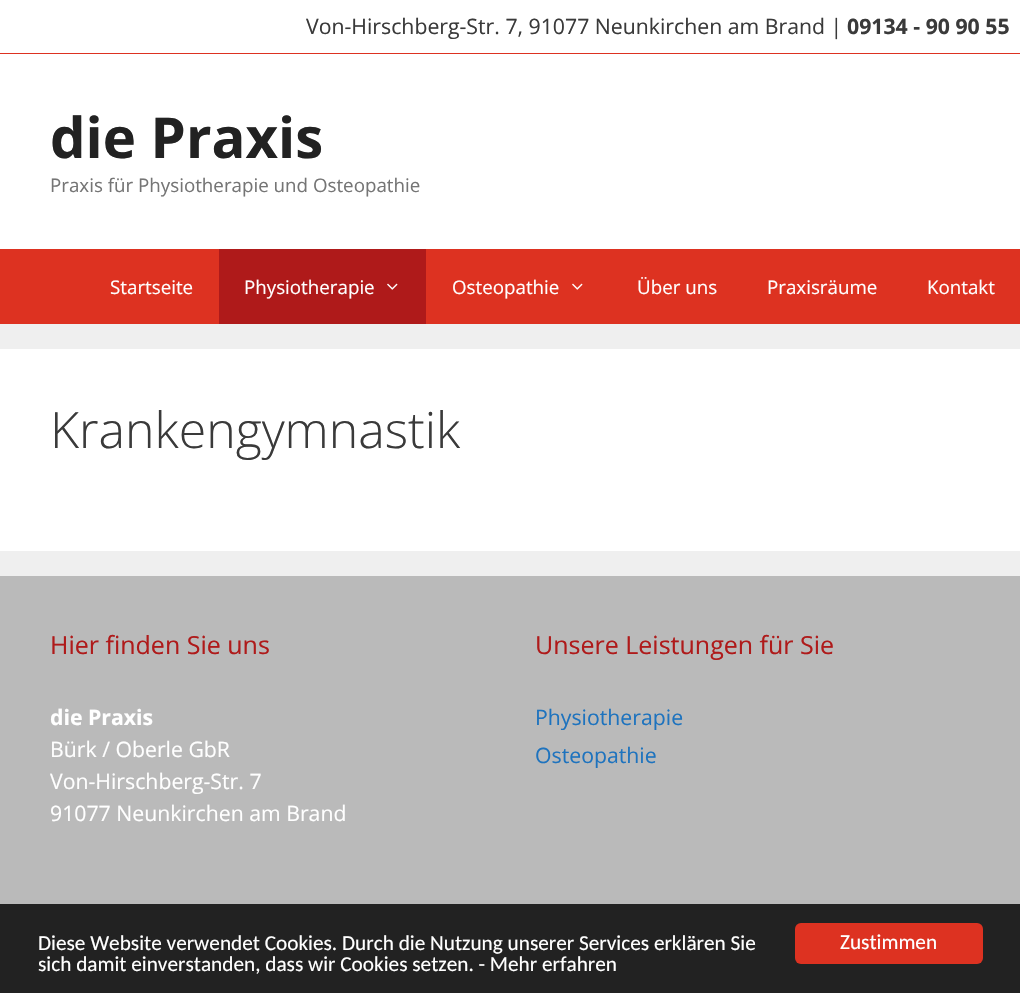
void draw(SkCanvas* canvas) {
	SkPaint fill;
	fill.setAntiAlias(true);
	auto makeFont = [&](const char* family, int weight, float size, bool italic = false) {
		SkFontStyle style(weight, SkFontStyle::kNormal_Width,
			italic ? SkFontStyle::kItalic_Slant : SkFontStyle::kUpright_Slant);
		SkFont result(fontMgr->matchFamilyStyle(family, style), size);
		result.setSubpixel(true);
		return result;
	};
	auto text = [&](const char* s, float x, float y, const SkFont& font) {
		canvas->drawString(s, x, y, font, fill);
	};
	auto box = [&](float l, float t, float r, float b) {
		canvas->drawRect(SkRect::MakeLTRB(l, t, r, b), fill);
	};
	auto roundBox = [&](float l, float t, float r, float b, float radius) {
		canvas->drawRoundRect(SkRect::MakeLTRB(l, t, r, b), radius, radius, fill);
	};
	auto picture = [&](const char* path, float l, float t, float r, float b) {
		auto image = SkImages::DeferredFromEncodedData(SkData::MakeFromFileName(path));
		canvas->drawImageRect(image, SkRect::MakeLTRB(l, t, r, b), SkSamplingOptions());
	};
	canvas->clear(0xFFEFEFEF);
	fill.setColor(0xFFFFFFFF);
	box(0, 0, 1020, 53);
	fill.setColor(0xFFDD3221);
	box(0, 53, 1020, 54);
	fill.setColor(0xFFFFFFFF);
	box(0, 54, 1020, 249);
	fill.setColor(0xFFDD3221);
	box(0, 249, 1020, 324);
	fill.setColor(0xFFAF1A1A);
	box(219, 249, 426, 324);
	picture("image0.png", 387, 283, 398, 290);
	picture("image1.png", 572, 283, 583, 290);
	fill.setColor(0xFFFFFFFF);
	box(0, 349, 1020, 551);
	fill.setColor(0xFFBABABA);
	box(0, 576, 1020, 904);
	fill.setColor(0xFF222222);
	box(0, 904, 1020, 993);
	fill.setColor(0xFFDD3221);
	roundBox(795, 923, 983, 964, 6);
	auto font1 = makeFont("Open Sans", 400, 21.25f);
	fill.setColor(0xFF3A3A3A);
	text("Von-Hirschberg-Str. 7, 91077 Neunkirchen am Brand |", 306, 34, font1);
	auto font2 = makeFont("Open Sans", 700, 21.25f);
	text("09134 - 90 90 55", 847, 34, font2);
	auto font3 = makeFont("Open Sans", 700, 56.25f);
	fill.setColor(0xFF222222);
	text("die Praxis", 50, 158, font3);
	auto font4 = makeFont("Open Sans", 400, 18.75f);
	fill.setColor(0xFF757575);
	text("Praxis für Physiotherapie und Osteopathie", 50, 192, font4);
	fill.setColor(0xFFFFFFFF);
	text("Startseite", 110, 294, font4);
	text("Physiotherapie", 244, 294, font4);
	text("Osteopathie", 452, 294, font4);
	text("Über uns", 637, 294, font4);
	text("Praxisräume", 767, 294, font4);
	text("Kontakt", 927, 294, font4);
	auto font5 = makeFont("Open Sans", 300, 50);
	fill.setColor(0xFF3A3A3A);
	text("Krankengymnastik", 50, 448, font5);
	auto font6 = makeFont("Open Sans", 400, 25);
	fill.setColor(0xFFAF1A1A);
	text("Hier finden Sie uns", 50, 654, font6);
	fill.setColor(0xFFFFFFFF);
	text("die Praxis", 50, 725, font2);
	text("Bürk / Oberle GbR", 50, 757, font1);
	text("Von-Hirschberg-Str. 7", 50, 789, font1);
	text("91077 Neunkirchen am Brand", 50, 821, font1);
	fill.setColor(0xFFAF1A1A);
	text("Unsere Leistungen für Sie", 535, 654, font6);
	fill.setColor(0xFF1E73BE);
	text("Physiotherapie", 535, 725, font1);
	text("Osteopathie", 535, 763, font1);
	auto font7 = makeFont("Carlito", 400, 21.25f);
	fill.setColor(0xFFFFFFFF);
	text("Diese Website verwendet Cookies. Durch die Nutzung unserer Services erklären Sie", 38, 950, font7);
	text("sich damit einverstanden, dass wir Cookies setzen. - Mehr erfahren", 38, 971, font7);
	text("Zustimmen", 840, 949, font7);
}
